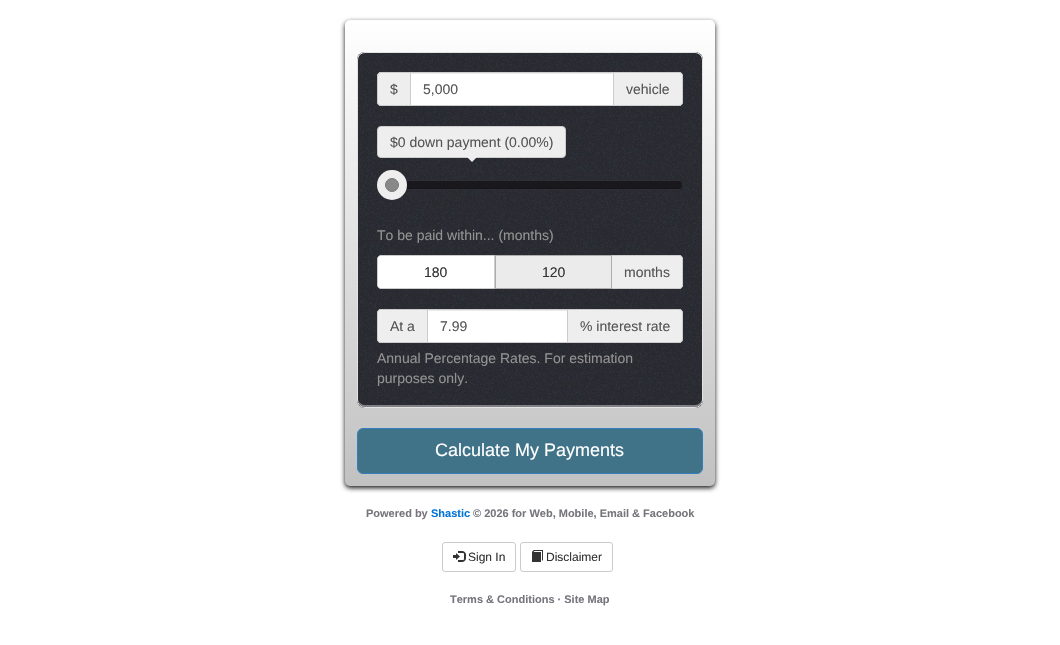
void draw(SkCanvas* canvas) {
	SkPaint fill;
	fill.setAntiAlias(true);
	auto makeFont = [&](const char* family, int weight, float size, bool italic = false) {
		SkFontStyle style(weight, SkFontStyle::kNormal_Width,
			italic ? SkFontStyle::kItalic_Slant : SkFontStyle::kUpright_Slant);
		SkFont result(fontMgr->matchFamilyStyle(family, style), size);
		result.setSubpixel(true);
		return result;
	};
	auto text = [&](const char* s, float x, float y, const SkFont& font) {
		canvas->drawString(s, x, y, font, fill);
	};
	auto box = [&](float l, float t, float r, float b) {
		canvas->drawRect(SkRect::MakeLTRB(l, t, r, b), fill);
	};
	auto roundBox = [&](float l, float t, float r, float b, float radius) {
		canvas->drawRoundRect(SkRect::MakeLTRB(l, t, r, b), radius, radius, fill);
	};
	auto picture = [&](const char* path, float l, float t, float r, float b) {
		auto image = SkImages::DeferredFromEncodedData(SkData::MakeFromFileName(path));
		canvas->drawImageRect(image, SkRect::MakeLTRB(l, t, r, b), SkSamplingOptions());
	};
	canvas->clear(0xFFFFFFFF);
	fill.setColor(0xEB000000);
	fill.setMaskFilter(SkMaskFilter::MakeBlur(kNormal_SkBlurStyle, 2.5f));
	canvas->drawRoundRect(SkRect::MakeLTRB(345, 22, 715, 488), 5, 5, fill);
	fill.setMaskFilter(nullptr);
	{
		const SkColor colors[] = {0xFFFFFFFF, 0xFFC1C1C1};
		const float stops[] = {0, 1};
		const SkPoint ends[] = {{530, 20}, {530, 486}};
		fill.setShader(SkGradientShader::MakeLinear(ends, colors, stops, 2, SkTileMode::kClamp));
		fill.setAlpha(255);
	}
	roundBox(345, 20, 715, 486, 5);
	picture("image0.png", 357, 52, 703, 408);
	fill.setShader(nullptr);
	fill.setColor(0x66FFFFFF);
	canvas->drawPath(SkPathBuilder().moveTo(358, 398).cubicTo(358, 402, 360, 407, 365, 407).lineTo(696, 407).cubicTo(701, 406, 702, 402, 702, 398).cubicTo(702, 402, 699, 405, 695, 405).lineTo(365, 405).cubicTo(361, 405, 358, 402, 358, 398).close().detach(), fill);
	fill.setStyle(SkPaint::kStroke_Style);
	fill.setStrokeWidth(1);
	fill.setColor(0xFFE3E3E3);
	canvas->drawRoundRect(SkRect::MakeLTRB(357.5f, 52.5f, 702.5f, 407.5f), 7.5f, 7.5f, fill);
	fill.setStyle(SkPaint::kFill_Style);
	fill.setColor(0xFFEEEEEE);
	canvas->drawPath(SkPathBuilder().moveTo(381, 72).lineTo(410, 72).lineTo(410, 106).lineTo(381, 106).cubicTo(379, 106, 377, 104, 377, 102).lineTo(377, 76).cubicTo(377, 74, 379, 72, 381, 72).close().detach(), fill);
	fill.setColor(0xFFCCCCCC);
	canvas->drawPath(SkPathBuilder(SkPathFillType::kEvenOdd).moveTo(381, 72).lineTo(410, 72).lineTo(410, 106).lineTo(381, 106).cubicTo(379, 106, 377, 104, 377, 102).lineTo(377, 76).cubicTo(377, 74, 379, 72, 381, 72).close().moveTo(381, 73).lineTo(410, 73).lineTo(410, 105).lineTo(381, 105).cubicTo(379.5f, 105, 378, 103.5f, 378, 102).lineTo(378, 76).cubicTo(378, 74.5f, 379.5f, 73, 381, 73).close().detach(), fill);
	fill.setColor(0xFFFFFFFF);
	box(411, 74, 613, 105);
	fill.setColor(0xFFECECEC);
	box(411, 73, 613, 74);
	fill.setStyle(SkPaint::kStroke_Style);
	fill.setColor(0xFFCCCCCC);
	canvas->drawRect(SkRect::MakeLTRB(410.5f, 72.5f, 613.5f, 105.5f), fill);
	fill.setStyle(SkPaint::kFill_Style);
	fill.setColor(0xFFEEEEEE);
	canvas->drawPath(SkPathBuilder().moveTo(614, 72).lineTo(679, 72).cubicTo(681, 72, 683, 74, 683, 76).lineTo(683, 102).cubicTo(683, 104, 681, 106, 679, 106).lineTo(614, 106).close().detach(), fill);
	fill.setColor(0xFFCCCCCC);
	canvas->drawPath(SkPathBuilder(SkPathFillType::kEvenOdd).moveTo(614, 72).lineTo(679, 72).cubicTo(681, 72, 683, 74, 683, 76).lineTo(683, 102).cubicTo(683, 104, 681, 106, 679, 106).lineTo(614, 106).close().moveTo(614, 73).lineTo(679, 73).cubicTo(681, 73, 682, 74, 682, 76).lineTo(682, 102).cubicTo(682, 104, 681, 105, 679, 105).lineTo(614, 105).close().detach(), fill);
	fill.setColor(0xFFEEEEEE);
	canvas->drawRoundRect(SkRect::MakeLTRB(377.5f, 126.5f, 565.5f, 157.5f), 3.5f, 3.5f, fill);
	fill.setStyle(SkPaint::kStroke_Style);
	fill.setColor(0xFFCCCCCC);
	canvas->drawRoundRect(SkRect::MakeLTRB(377.5f, 126.5f, 565.5f, 157.5f), 3.5f, 3.5f, fill);
	fill.setStyle(SkPaint::kFill_Style);
	fill.setColor(0xFFEEEEEE);
	canvas->drawPath(SkPathBuilder().moveTo(467, 157).lineTo(477, 157).lineTo(472, 162).close().detach(), fill);
	fill.setColor(0xFF19181D);
	roundBox(377, 180, 683, 190, 4);
	fill.setColor(0xFF151419);
	canvas->drawPath(SkPathBuilder().moveTo(378, 184).cubicTo(378, 186, 378, 189, 381, 189).lineTo(679, 189).cubicTo(681, 189, 682, 187, 682, 185).cubicTo(682, 187, 681, 188, 679, 188).lineTo(381, 188).cubicTo(379, 188, 378, 186, 378, 184).close().detach(), fill);
	fill.setStyle(SkPaint::kStroke_Style);
	fill.setColor(0xFF312E38);
	canvas->drawRoundRect(SkRect::MakeLTRB(377.5f, 180.5f, 682.5f, 189.5f), 3.5f, 3.5f, fill);
	fill.setStyle(SkPaint::kFill_Style);
	fill.setColor(0xFFEEEEEE);
	canvas->drawCircle(392, 185, 15, fill);
	fill.setColor(0x33FFFFFF);
	canvas->drawPath(SkPathBuilder().moveTo(392, 171).cubicTo(402, 171, 407, 178, 407, 185.5f).cubicTo(407, 182.5f, 406, 179, 404.5f, 176.5f).cubicTo(396, 164, 376.5f, 170.5f, 377, 185.5f).cubicTo(377, 178, 382, 171, 392, 171).close().detach(), fill);
	fill.setColor(0xFF888888);
	canvas->drawCircle(392, 185, 6.5f, fill);
	fill.setStyle(SkPaint::kStroke_Style);
	fill.setColor(0xFF777777);
	canvas->drawCircle(392, 185, 6.5f, fill);
	fill.setStyle(SkPaint::kFill_Style);
	fill.setColor(0xFFFFFFFF);
	canvas->drawPath(SkPathBuilder().moveTo(381, 255.5f).lineTo(494.5f, 255.5f).lineTo(494.5f, 288.5f).lineTo(381, 288.5f).cubicTo(379, 288.5f, 377.5f, 287, 377.5f, 285).lineTo(377.5f, 259).cubicTo(377.5f, 257, 379, 255.5f, 381, 255.5f).close().detach(), fill);
	fill.setStyle(SkPaint::kStroke_Style);
	fill.setColor(0xFFCCCCCC);
	canvas->drawPath(SkPathBuilder().moveTo(381, 255.5f).lineTo(494.5f, 255.5f).lineTo(494.5f, 288.5f).lineTo(381, 288.5f).cubicTo(379, 288.5f, 377.5f, 287, 377.5f, 285).lineTo(377.5f, 259).cubicTo(377.5f, 257, 379, 255.5f, 381, 255.5f).close().detach(), fill);
	fill.setStyle(SkPaint::kFill_Style);
	fill.setColor(0xFFEBEBEB);
	canvas->drawRect(SkRect::MakeLTRB(495.5f, 255.5f, 611.5f, 288.5f), fill);
	fill.setStyle(SkPaint::kStroke_Style);
	fill.setColor(0xFFADADAD);
	canvas->drawRect(SkRect::MakeLTRB(495.5f, 255.5f, 611.5f, 288.5f), fill);
	fill.setStyle(SkPaint::kFill_Style);
	fill.setColor(0xFFEEEEEE);
	canvas->drawPath(SkPathBuilder().moveTo(612, 255).lineTo(679, 255).cubicTo(681, 255, 683, 257, 683, 259).lineTo(683, 285).cubicTo(683, 287, 681, 289, 679, 289).lineTo(612, 289).close().detach(), fill);
	fill.setColor(0xFFCCCCCC);
	canvas->drawPath(SkPathBuilder(SkPathFillType::kEvenOdd).moveTo(612, 255).lineTo(679, 255).cubicTo(681, 255, 683, 257, 683, 259).lineTo(683, 285).cubicTo(683, 287, 681, 289, 679, 289).lineTo(612, 289).close().moveTo(612, 256).lineTo(679, 256).cubicTo(681, 256, 682, 257, 682, 259).lineTo(682, 285).cubicTo(682, 287, 681, 288, 679, 288).lineTo(612, 288).close().detach(), fill);
	fill.setColor(0xFFEEEEEE);
	canvas->drawPath(SkPathBuilder().moveTo(381, 309).lineTo(427, 309).lineTo(427, 343).lineTo(381, 343).cubicTo(379, 343, 377, 341, 377, 339).lineTo(377, 313).cubicTo(377, 311, 379, 309, 381, 309).close().detach(), fill);
	fill.setColor(0xFFCCCCCC);
	canvas->drawPath(SkPathBuilder(SkPathFillType::kEvenOdd).moveTo(381, 309).lineTo(427, 309).lineTo(427, 343).lineTo(381, 343).cubicTo(379, 343, 377, 341, 377, 339).lineTo(377, 313).cubicTo(377, 311, 379, 309, 381, 309).close().moveTo(381, 310).lineTo(427, 310).lineTo(427, 342).lineTo(381, 342).cubicTo(379, 342, 378, 341, 378, 339).lineTo(378, 313).cubicTo(378, 311, 379, 310, 381, 310).close().detach(), fill);
	fill.setColor(0xFFFFFFFF);
	box(428, 311, 567, 342);
	fill.setColor(0xFFECECEC);
	box(428, 310, 567, 311);
	fill.setStyle(SkPaint::kStroke_Style);
	fill.setColor(0xFFCCCCCC);
	canvas->drawRect(SkRect::MakeLTRB(427.5f, 309.5f, 567.5f, 342.5f), fill);
	fill.setStyle(SkPaint::kFill_Style);
	fill.setColor(0xFFEEEEEE);
	canvas->drawPath(SkPathBuilder().moveTo(568, 309).lineTo(679, 309).cubicTo(681, 309, 683, 311, 683, 313).lineTo(683, 339).cubicTo(683, 341, 681, 343, 679, 343).lineTo(568, 343).close().detach(), fill);
	fill.setColor(0xFFCCCCCC);
	canvas->drawPath(SkPathBuilder(SkPathFillType::kEvenOdd).moveTo(568, 309).lineTo(679, 309).cubicTo(681, 309, 683, 311, 683, 313).lineTo(683, 339).cubicTo(683, 341, 681, 343, 679, 343).lineTo(568, 343).close().moveTo(568, 310).lineTo(679, 310).cubicTo(681, 310, 682, 311, 682, 313).lineTo(682, 339).cubicTo(682, 341, 681, 342, 679, 342).lineTo(568, 342).close().detach(), fill);
	fill.setColor(0xFF417388);
	canvas->drawRoundRect(SkRect::MakeLTRB(357.5f, 428.5f, 702.5f, 473.5f), 5.5f, 5.5f, fill);
	fill.setStyle(SkPaint::kStroke_Style);
	fill.setColor(0xFF357EBD);
	canvas->drawRoundRect(SkRect::MakeLTRB(357.5f, 428.5f, 702.5f, 473.5f), 5.5f, 5.5f, fill);
	fill.setColor(0xFFCCCCCC);
	canvas->drawRoundRect(SkRect::MakeLTRB(442.5f, 542.5f, 515.5f, 571.5f), 2.5f, 2.5f, fill);
	picture("image1.png", 453, 551, 466, 562);
	canvas->drawRoundRect(SkRect::MakeLTRB(520.5f, 542.5f, 612.5f, 571.5f), 2.5f, 2.5f, fill);
	picture("image2.png", 532, 550, 543, 562);
	auto font1 = makeFont("Liberation Sans", 400, 14);
	fill.setStyle(SkPaint::kFill_Style);
	fill.setColor(0xFF555555);
	text("$", 390, 94, font1);
	text("5,000", 423, 94, font1);
	text("vehicle", 626, 94, font1);
	text("$0 down payment (0.00%)", 390, 147, font1);
	fill.setColor(0xFF939393);
	text("To be paid within... (months)", 377, 240, font1);
	fill.setColor(0xFF333333);
	text("180", 424, 277, font1);
	text("120", 542, 277, font1);
	fill.setColor(0xFF555555);
	text("months", 624, 277, font1);
	text("At a", 390, 331, font1);
	text("7.99", 440, 331, font1);
	text("% interest rate", 580, 331, font1);
	fill.setColor(0xFF939393);
	text("Annual Percentage Rates. For estimation", 377, 363, font1);
	text("purposes only.", 377, 383, font1);
	auto font2 = makeFont("Liberation Sans", 400, 18);
	fill.setColor(0xFFFFFFFF);
	text("Calculate My Payments", 435, 456, font2);
	auto font3 = makeFont("Liberation Sans", 700, 11);
	fill.setColor(0xFF77747B);
	text("Powered by", 366, 517, font3);
	fill.setColor(0xFF0275D8);
	text("Shastic", 431, 517, font3);
	fill.setColor(0xFF77747B);
	text("© 2026 for Web, Mobile, Email & Facebook", 473, 517, font3);
	auto font4 = makeFont("Liberation Sans", 400, 12);
	fill.setColor(0xFF333333);
	text("Sign In", 468, 561, font4);
	text("Disclaimer", 546, 561, font4);
	fill.setColor(0xFF77747B);
	text("Terms & Conditions · Site Map", 450, 603, font3);
}
